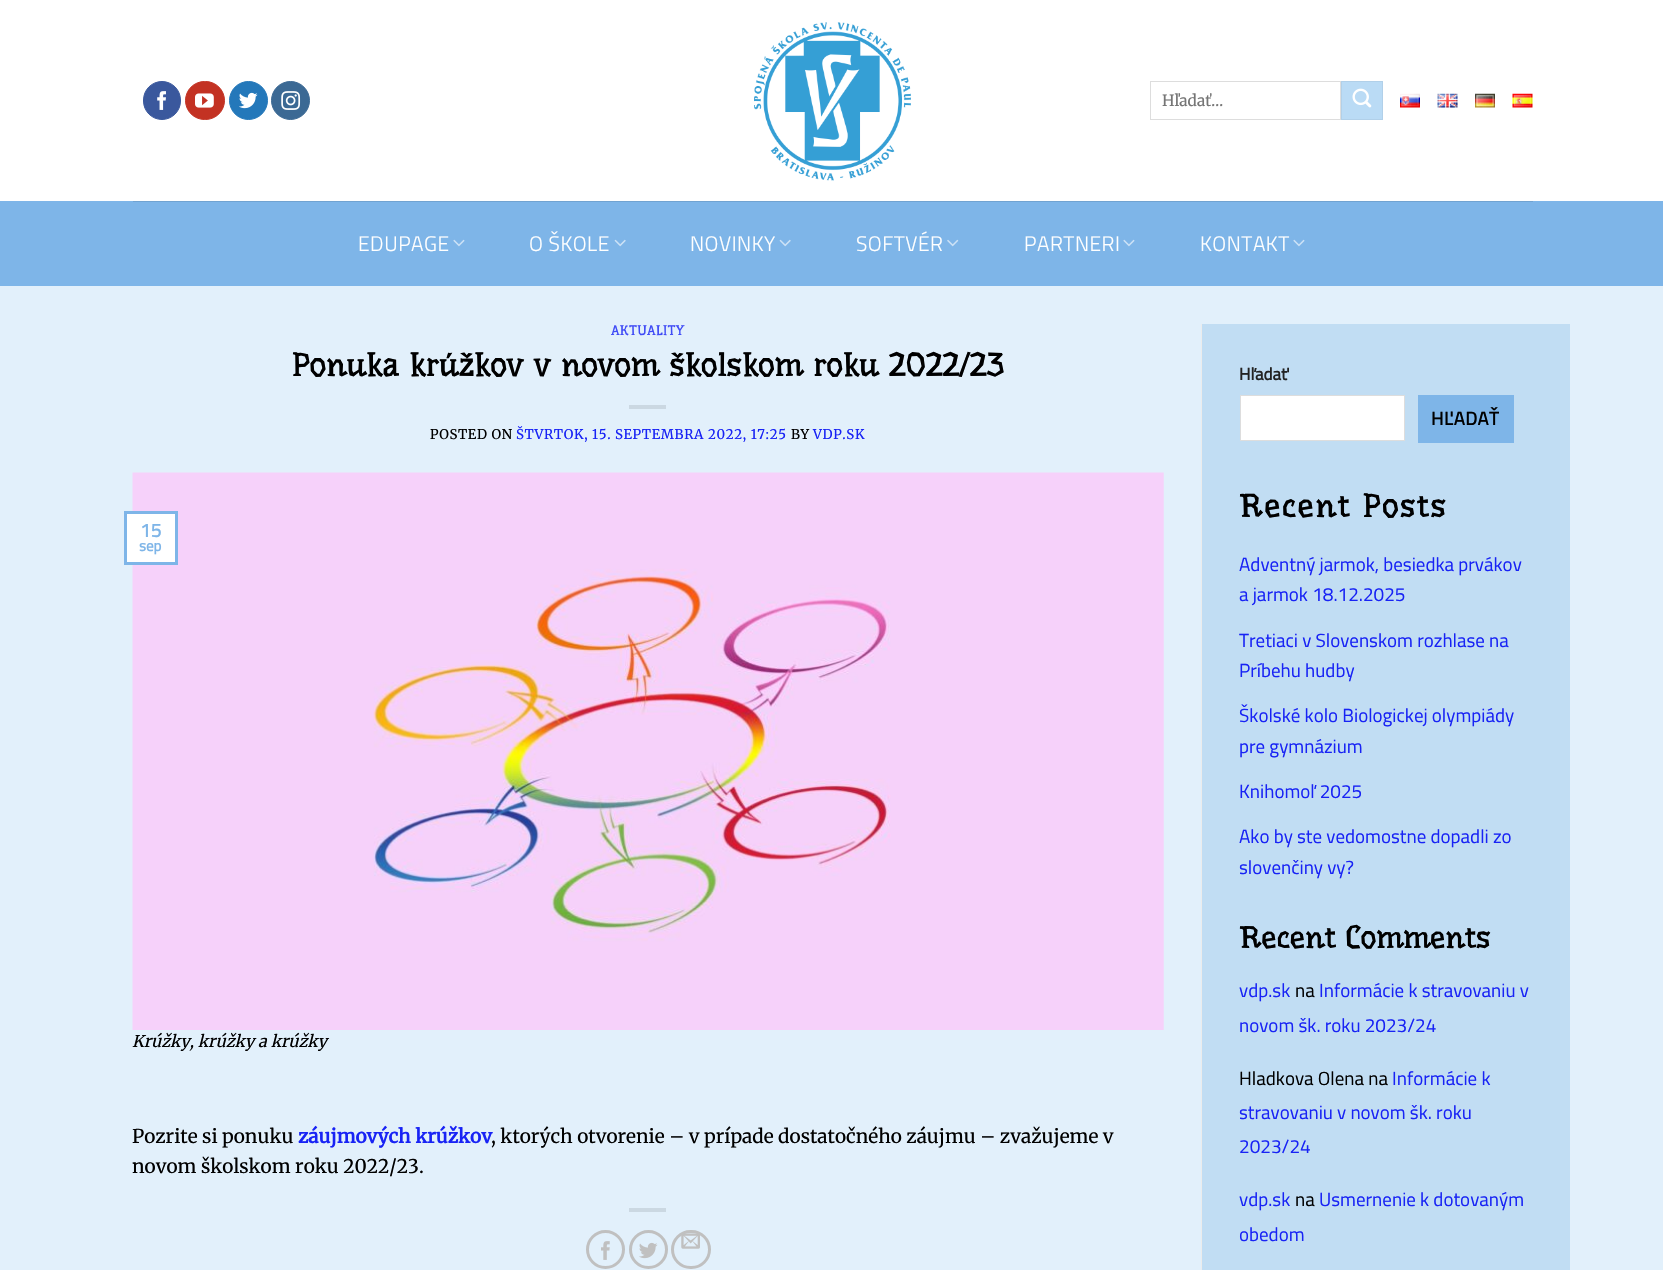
void draw(SkCanvas* canvas) {
	SkPaint fill;
	fill.setAntiAlias(true);
	auto makeFont = [&](const char* family, int weight, float size, bool italic = false) {
		SkFontStyle style(weight, SkFontStyle::kNormal_Width,
			italic ? SkFontStyle::kItalic_Slant : SkFontStyle::kUpright_Slant);
		SkFont result(fontMgr->matchFamilyStyle(family, style), size);
		result.setSubpixel(true);
		return result;
	};
	auto text = [&](const char* s, float x, float y, const SkFont& font) {
		canvas->drawString(s, x, y, font, fill);
	};
	auto spacedText = [&](const char* s, float x, float y, const SkFont& font, const SkPaint& ink, float letter, float word) {
		std::vector<SkGlyphID> glyphs(font.countText(s, strlen(s), SkTextEncoding::kUTF8));
		std::vector<float> xs(glyphs.size());
		font.textToGlyphs(s, strlen(s), SkTextEncoding::kUTF8, glyphs);
		font.getXPos(glyphs, xs, x);
		float extra = 0;
		for (size_t i = 0; i < glyphs.size(); i++) {
			xs[i] += extra;
			extra += letter + word * (glyphs[i] == font.unicharToGlyph(' '));
		}
		canvas->drawTextBlob(SkTextBlob::MakeFromPosHGlyphs(glyphs, xs, y, font), 0, 0, ink);
	};
	auto box = [&](float l, float t, float r, float b) {
		canvas->drawRect(SkRect::MakeLTRB(l, t, r, b), fill);
	};
	auto picture = [&](const char* path, float l, float t, float r, float b) {
		auto image = SkImages::DeferredFromEncodedData(SkData::MakeFromFileName(path));
		canvas->drawImageRect(image, SkRect::MakeLTRB(l, t, r, b), SkSamplingOptions());
	};
	canvas->clear(0xFFFFFFFF);
	fill.setColor(0xFF3A589D);
	canvas->drawRoundRect(SkRect::MakeLTRB(143.5f, 81.5f, 180.5f, 119.5f), 18.5f, 18.5f, fill);
	fill.setStyle(SkPaint::kStroke_Style);
	fill.setStrokeWidth(1);
	canvas->drawRoundRect(SkRect::MakeLTRB(143.5f, 81.5f, 180.5f, 119.5f), 18.5f, 18.5f, fill);
	picture("image0.png", 157, 91, 166, 110);
	fill.setStyle(SkPaint::kFill_Style);
	fill.setColor(0xFFC33223);
	canvas->drawRoundRect(SkRect::MakeLTRB(185.5f, 81.5f, 224.5f, 119.5f), 19, 19, fill);
	fill.setStyle(SkPaint::kStroke_Style);
	canvas->drawRoundRect(SkRect::MakeLTRB(185.5f, 81.5f, 224.5f, 119.5f), 19, 19, fill);
	picture("image1.png", 195, 93, 214, 108);
	fill.setStyle(SkPaint::kFill_Style);
	fill.setColor(0xFF2478BA);
	canvas->drawCircle(248.5f, 100.5f, 19, fill);
	fill.setStyle(SkPaint::kStroke_Style);
	canvas->drawCircle(248.5f, 100.5f, 19, fill);
	picture("image2.png", 239, 92, 258, 109);
	fill.setStyle(SkPaint::kFill_Style);
	fill.setColor(0xFF3B6994);
	canvas->drawCircle(290.5f, 100.5f, 19, fill);
	fill.setStyle(SkPaint::kStroke_Style);
	canvas->drawCircle(290.5f, 100.5f, 19, fill);
	picture("image3.png", 281, 91, 301, 110);
	picture("image4.png", 754, 22, 911, 181);
	fill.setColor(0xFFDDDDDD);
	canvas->drawRect(SkRect::MakeLTRB(1150.5f, 81.5f, 1340.5f, 119.5f), fill);
	fill.setStyle(SkPaint::kFill_Style);
	fill.setColor(0xFFBADBF5);
	canvas->drawRect(SkRect::MakeLTRB(1341.5f, 81.5f, 1382.5f, 119.5f), fill);
	fill.setStyle(SkPaint::kStroke_Style);
	fill.setColor(0xFFB1D0E9);
	canvas->drawRect(SkRect::MakeLTRB(1341.5f, 81.5f, 1382.5f, 119.5f), fill);
	picture("image5.png", 1352, 88, 1372, 108);
	picture("image6.png", 1400, 93, 1420, 108);
	picture("image7.png", 1437, 93, 1458, 108);
	picture("image8.png", 1475, 93, 1495, 108);
	picture("image9.png", 1512, 93, 1533, 108);
	fill.setStyle(SkPaint::kFill_Style);
	fill.setColor(0xFF7EB5E8);
	box(0, 201, 1663, 286);
	fill.setColor(0xFF71A3D1);
	box(133, 201, 1533, 202);
	picture("image10.png", 453, 239, 465, 247);
	picture("image11.png", 614, 239, 626, 247);
	picture("image11.png", 779, 239, 791, 247);
	picture("image12.png", 947, 239, 959, 247);
	picture("image10.png", 1123, 239, 1135, 247);
	picture("image10.png", 1293, 239, 1305, 247);
	fill.setColor(0xFFE2F0FB);
	box(0, 286, 1663, 1270);
	fill.setColor(0xFFCBD8E2);
	box(629, 405, 666, 409);
	picture("image13.png", 132, 472, 1164, 1030);
	fill.setColor(0xFFFFFFFF);
	canvas->drawRect(SkRect::MakeLTRB(125.5f, 512.5f, 176.5f, 563.5f), fill);
	fill.setStyle(SkPaint::kStroke_Style);
	fill.setStrokeWidth(3);
	fill.setColor(0xFF7EB5E8);
	canvas->drawRect(SkRect::MakeLTRB(125.5f, 512.5f, 176.5f, 563.5f), fill);
	fill.setStyle(SkPaint::kFill_Style);
	fill.setColor(0xFFCBD8E2);
	box(629, 1208, 666, 1212);
	fill.setStyle(SkPaint::kStroke_Style);
	fill.setColor(0xFFC0C0C0);
	canvas->drawCircle(605.5f, 1249.5f, 18, fill);
	picture("image14.png", 601, 1241, 610, 1260);
	canvas->drawCircle(648.5f, 1249.5f, 18, fill);
	picture("image15.png", 639, 1242, 658, 1259);
	canvas->drawRoundRect(SkRect::MakeLTRB(672.5f, 1231.5f, 709.5f, 1267.5f), 18, 18, fill);
	picture("image16.png", 681, 1233, 700, 1249);
	fill.setStyle(SkPaint::kFill_Style);
	fill.setColor(0xFFC1DDF3);
	box(1202, 324, 1570, 1270);
	fill.setColor(0xFFECECEC);
	box(1201, 324, 1202, 1270);
	fill.setColor(0xFFFFFFFF);
	canvas->drawRect(SkRect::MakeLTRB(1240.5f, 395.5f, 1404.5f, 440.5f), fill);
	fill.setStyle(SkPaint::kStroke_Style);
	fill.setStrokeWidth(1);
	fill.setColor(0xFFDDDDDD);
	canvas->drawRect(SkRect::MakeLTRB(1240.5f, 395.5f, 1404.5f, 440.5f), fill);
	fill.setStyle(SkPaint::kFill_Style);
	fill.setColor(0xFF7EB5E8);
	box(1418, 395, 1514, 443);
	auto font1 = makeFont("Merriweather", 300, 15.5f);
	fill.setColor(0xFF757575);
	text("Hľadať...", 1162, 106, font1);
	auto font2 = makeFont("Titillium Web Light", 300, 21);
	fill.setColor(0xFFFFFFFF);
	spacedText("EDUPAGE", 358, 251, font2, fill, 0.5f, 0);
	spacedText("O ŠKOLE", 529, 251, font2, fill, 0.5f, 0);
	spacedText("NOVINKY", 690, 251, font2, fill, 0.5f, 0);
	spacedText("SOFTVÉR", 856, 251, font2, fill, 0.5f, 0);
	spacedText("PARTNERI", 1024, 251, font2, fill, 0.5f, 0);
	spacedText("KONTAKT", 1200, 251, font2, fill, 0.5f, 0);
	auto font3 = makeFont("Underdog", 700, 13.3f);
	fill.setColor(0xFF404CF6);
	spacedText("AKTUALITY", 611, 335, font3, fill, 0.65f, 0);
	auto font4 = makeFont("Underdog", 700, 32.3f);
	fill.setColor(0xFF000000);
	text("Ponuka krúžkov v novom školskom roku 2O22/23", 292, 376, font4);
	auto font5 = makeFont("Merriweather", 300, 13.3f);
	spacedText("POSTED ON", 430, 439, font5, fill, 0.65f, 0);
	fill.setColor(0xFF1823F5);
	spacedText("ŠTVRTOK, 15. SEPTEMBRA 2022, 17:25", 516, 439, font5, fill, 0.65f, 0);
	fill.setColor(0xFF000000);
	spacedText("BY", 791, 439, font5, fill, 0.65f, 0);
	fill.setColor(0xFF1823F5);
	spacedText("VDP.SK", 813, 439, font5, fill, 0.65f, 0);
	auto font6 = makeFont("Titillium Web", 700, 19);
	fill.setColor(0xFF7EB5E8);
	text("15", 140, 537, font6);
	auto font7 = makeFont("Titillium Web", 700, 15);
	text("sep", 139, 551, font7);
	auto font8 = makeFont("Merriweather", 300, 16.25f, true);
	fill.setColor(0xFF000000);
	text("Krúžky, krúžky a krúžky", 132, 1047, font8);
	auto font9 = makeFont("Merriweather", 300, 19);
	text("Pozrite si ponuku", 132, 1143, font9);
	auto font10 = makeFont("Merriweather", 700, 19);
	fill.setColor(0xFF1823F5);
	text("záujmových krúžkov", 298, 1143, font10);
	fill.setColor(0xFF000000);
	text(", ktorých otvorenie – v prípade dostatočného záujmu – zvažujeme v", 491, 1143, font9);
	text("novom školskom roku 2022/23.", 132, 1173, font9);
	auto font11 = makeFont("Titillium Web", 700, 17);
	fill.setColor(0xFF222222);
	text("Hľadať", 1239, 380, font11);
	auto font12 = makeFont("Titillium Web", 700, 18.5f);
	fill.setColor(0xFF000000);
	spacedText("HĽADAŤ", 1431, 425, font12, fill, 0.5f, 0);
	spacedText("Recent Posts", 1239, 517, font4, fill, 1.6f, 0);
	auto font13 = makeFont("Titillium Web", 400, 19);
	fill.setColor(0xFF1823F5);
	text("Adventný jarmok, besiedka prvákov", 1239, 571, font13);
	text("a jarmok 18.12.2025", 1239, 601, font13);
	text("Tretiaci v Slovenskom rozhlase na", 1239, 647, font13);
	text("Príbehu hudby", 1239, 677, font13);
	text("Školské kolo Biologickej olympiády", 1239, 722, font13);
	text("pre gymnázium", 1239, 753, font13);
	text("Knihomoľ 2025", 1239, 798, font13);
	text("Ako by ste vedomostne dopadli zo", 1239, 843, font13);
	text("slovenčiny vy?", 1239, 874, font13);
	auto font14 = makeFont("Underdog", 700, 30.5f);
	fill.setColor(0xFF000000);
	text("Recent Comments", 1239, 948, font14);
	fill.setColor(0xFF1823F5);
	text("vdp.sk", 1239, 997, font13);
	fill.setColor(0xFF000000);
	text("na", 1295, 997, font13);
	fill.setColor(0xFF1823F5);
	text("Informácie k stravovaniu v", 1319, 997, font13);
	text("novom šk. roku 2023/24", 1239, 1032, font13);
	fill.setColor(0xFF000000);
	text("Hladkova Olena na", 1239, 1085, font13);
	fill.setColor(0xFF1823F5);
	text("Informácie k", 1392, 1085, font13);
	text("stravovaniu v novom šk. roku", 1239, 1119, font13);
	text("2023/24", 1239, 1153, font13);
	text("vdp.sk", 1239, 1206, font13);
	fill.setColor(0xFF000000);
	text("na", 1295, 1206, font13);
	fill.setColor(0xFF1823F5);
	text("Usmernenie k dotovaným", 1319, 1206, font13);
	text("obedom", 1239, 1241, font13);
}
